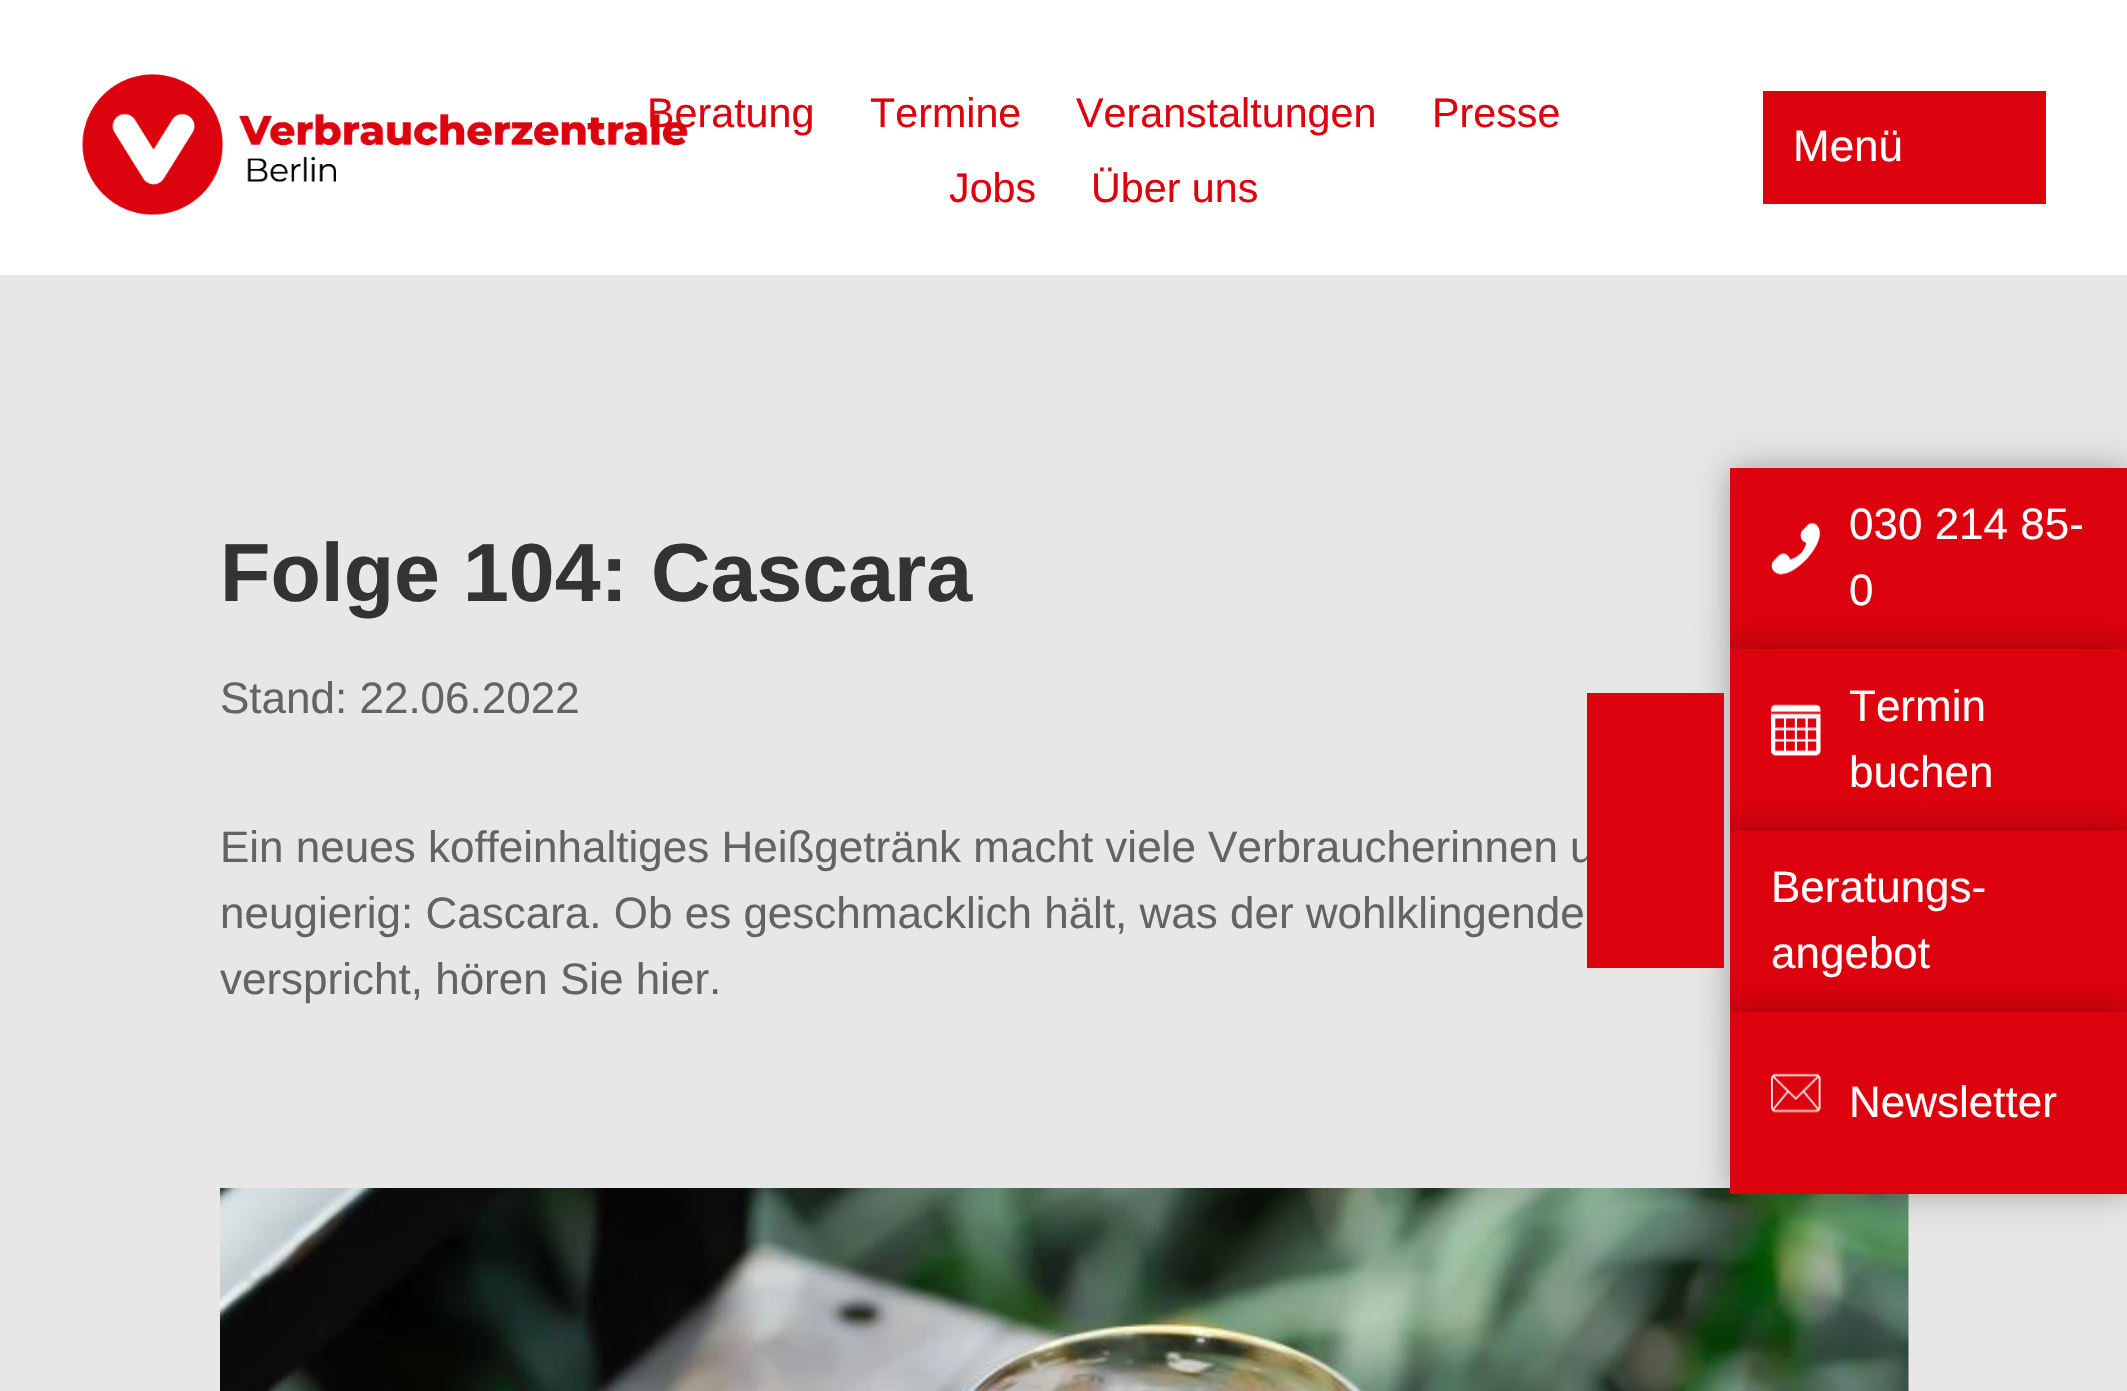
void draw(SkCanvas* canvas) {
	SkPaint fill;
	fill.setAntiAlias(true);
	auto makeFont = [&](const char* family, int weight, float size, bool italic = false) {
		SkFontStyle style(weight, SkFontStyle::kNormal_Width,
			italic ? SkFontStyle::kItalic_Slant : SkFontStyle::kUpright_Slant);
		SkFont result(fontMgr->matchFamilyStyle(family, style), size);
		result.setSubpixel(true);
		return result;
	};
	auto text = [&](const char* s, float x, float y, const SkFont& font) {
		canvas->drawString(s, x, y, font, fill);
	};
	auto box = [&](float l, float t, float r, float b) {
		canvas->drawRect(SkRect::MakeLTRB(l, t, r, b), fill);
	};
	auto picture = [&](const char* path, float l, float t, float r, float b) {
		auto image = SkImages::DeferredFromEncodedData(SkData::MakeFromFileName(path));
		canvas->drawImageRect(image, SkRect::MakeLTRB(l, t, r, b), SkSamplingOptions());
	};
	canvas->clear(0xFFFFFFFF);
	picture("image0.png", 82, 74, 688, 215);
	fill.setColor(0xFFDC020E);
	box(1763, 91, 2046, 204);
	fill.setColor(0xFFE7E7E7);
	box(0, 275, 2127, 1391);
	picture("image1.png", 220, 1188, 1909, 1391);
	fill.setColor(0x4D000000);
	fill.setMaskFilter(SkMaskFilter::MakeBlur(kNormal_SkBlurStyle, 16.5f));
	canvas->drawRect(SkRect::MakeLTRB(1730, 468, 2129, 649), fill);
	fill.setMaskFilter(nullptr);
	fill.setColor(0xFFDC020E);
	box(1730, 468, 2127, 649);
	picture("image2.png", 1771, 523, 1820, 575);
	fill.setColor(0x4D000000);
	fill.setMaskFilter(SkMaskFilter::MakeBlur(kNormal_SkBlurStyle, 16.5f));
	canvas->drawRect(SkRect::MakeLTRB(1730, 649, 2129, 831), fill);
	fill.setMaskFilter(nullptr);
	fill.setColor(0xFFDC020E);
	box(1730, 649, 2127, 831);
	picture("image3.png", 1771, 704, 1821, 756);
	fill.setColor(0x4D000000);
	fill.setMaskFilter(SkMaskFilter::MakeBlur(kNormal_SkBlurStyle, 16.5f));
	canvas->drawRect(SkRect::MakeLTRB(1730, 831, 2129, 1012), fill);
	fill.setMaskFilter(nullptr);
	fill.setColor(0xFFDC020E);
	box(1730, 831, 2127, 1012);
	fill.setColor(0x4D000000);
	fill.setMaskFilter(SkMaskFilter::MakeBlur(kNormal_SkBlurStyle, 16.5f));
	canvas->drawRect(SkRect::MakeLTRB(1730, 1012, 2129, 1194), fill);
	fill.setMaskFilter(nullptr);
	fill.setColor(0xFFDC020E);
	box(1730, 1012, 2127, 1194);
	picture("image4.png", 1771, 1073, 1821, 1113);
	auto font1 = makeFont("Liberation Sans", 400, 41.25f);
	text("Beratung", 647, 127, font1);
	text("Termine", 870, 127, font1);
	text("Veranstaltungen", 1076, 127, font1);
	text("Presse", 1432, 127, font1);
	text("Jobs", 949, 202, font1);
	text("Über uns", 1091, 202, font1);
	auto font2 = makeFont("Liberation Sans", 400, 44);
	fill.setColor(0xFFFFFFFF);
	text("Menü", 1793, 161, font2);
	auto font3 = makeFont("Liberation Sans", 700, 82.5f);
	fill.setColor(0xFF333333);
	text("Folge 104: Cascara", 220, 601, font3);
	fill.setColor(0xFF636363);
	text("Stand: 22.06.2022", 220, 713, font2);
	text("Ein neues koffeinhaltiges Heißgetränk macht viele Verbraucherinnen u", 220, 862, font2);
	text("neugierig: Cascara. Ob es geschmacklich hält, was der wohlklingende", 220, 928, font2);
	text("verspricht, hören Sie hier.", 220, 994, font2);
	fill.setColor(0xFFDC020E);
	box(1587, 693, 1724, 968);
	fill.setColor(0xFFFFFFFF);
	text("030 214 85-", 1849, 539, font2);
	text("0", 1849, 605, font2);
	text("Termin", 1849, 721, font2);
	text("buchen", 1849, 787, font2);
	text("Beratungs-", 1771, 902, font2);
	text("angebot", 1771, 968, font2);
	text("Newsletter", 1849, 1117, font2);
}
